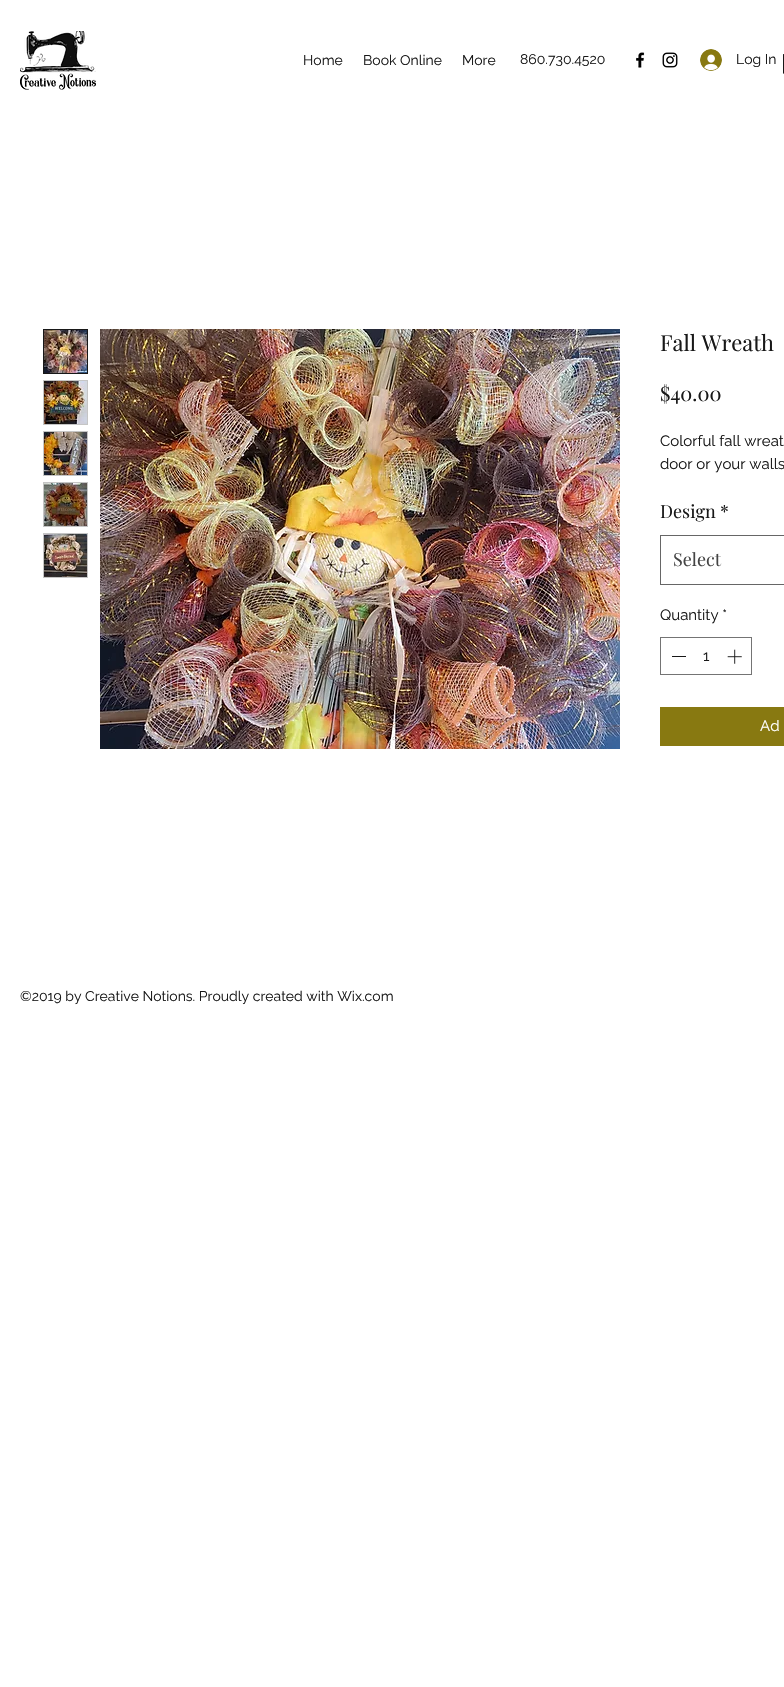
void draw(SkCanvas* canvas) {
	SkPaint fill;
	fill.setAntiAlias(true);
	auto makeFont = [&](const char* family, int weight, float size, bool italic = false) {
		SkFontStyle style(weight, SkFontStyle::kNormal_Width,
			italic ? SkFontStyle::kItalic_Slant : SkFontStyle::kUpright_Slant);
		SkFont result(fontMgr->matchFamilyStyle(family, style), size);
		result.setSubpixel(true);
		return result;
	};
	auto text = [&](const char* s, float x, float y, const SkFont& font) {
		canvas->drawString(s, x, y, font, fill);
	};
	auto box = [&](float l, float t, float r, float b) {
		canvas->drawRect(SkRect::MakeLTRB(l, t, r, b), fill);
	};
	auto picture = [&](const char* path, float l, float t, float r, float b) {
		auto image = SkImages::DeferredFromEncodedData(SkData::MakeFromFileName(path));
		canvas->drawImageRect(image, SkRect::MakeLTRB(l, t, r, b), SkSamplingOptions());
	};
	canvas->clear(0xFFFFFFFF);
	picture("image0.png", 20, 31, 96, 90);
	picture("image1.png", 636, 52, 645, 68);
	picture("image2.png", 662, 52, 678, 68);
	picture("image3.png", 700, 49, 722, 71);
	picture("image4.png", 783, 54, 784, 74);
	fill.setStyle(SkPaint::kStroke_Style);
	fill.setStrokeWidth(1);
	fill.setColor(0xFF181818);
	canvas->drawRect(SkRect::MakeLTRB(43.5f, 329.5f, 87.5f, 373.5f), fill);
	picture("image5.png", 44, 330, 87, 373);
	fill.setStyle(SkPaint::kFill_Style);
	fill.setColor(0xFFC5C5C5);
	box(43, 380, 88, 425);
	picture("image6.png", 44, 381, 87, 424);
	box(43, 431, 88, 476);
	picture("image7.png", 44, 432, 87, 475);
	box(43, 482, 88, 527);
	picture("image8.png", 44, 483, 87, 526);
	box(43, 533, 88, 578);
	picture("image9.png", 44, 534, 87, 577);
	picture("image10.png", 100, 329, 620, 749);
	fill.setStyle(SkPaint::kStroke_Style);
	fill.setColor(0xFF666666);
	canvas->drawRect(SkRect::MakeLTRB(660.5f, 535.5f, 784.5f, 584.5f), fill);
	fill.setColor(0xFF747474);
	canvas->drawRect(SkRect::MakeLTRB(660.5f, 637.5f, 751.5f, 674.5f), fill);
	fill.setStyle(SkPaint::kFill_Style);
	fill.setColor(0xFF181818);
	box(672, 656, 686, 657);
	picture("image11.png", 727, 649, 742, 664);
	fill.setColor(0xFF887911);
	box(660, 707, 784, 746);
	auto font1 = makeFont("Raleway", 400, 14);
	fill.setColor(0xFF181818);
	text("Home", 303, 65, font1);
	text("Book Online", 363, 65, font1);
	text("More", 462, 65, font1);
	text("860.730.4520", 520, 64, font1);
	text("Log In", 736, 64, font1);
	auto font2 = makeFont("Playfair Display", 400, 22);
	text("Fall Wreath", 660, 351, font2);
	auto font3 = makeFont("Playfair Display", 400, 20);
	text("$40.00", 660, 401, font3);
	auto font4 = makeFont("Raleway", 400, 15);
	text("Colorful fall wreat", 660, 446, font4);
	text("door or your walls", 660, 469, font4);
	auto font5 = makeFont("Playfair Display", 400, 18);
	text("Design", 660, 518, font5);
	text("*", 720, 518, font5);
	fill.setColor(0xFF444444);
	text("Select", 673, 566, font5);
	fill.setColor(0xFF181818);
	text("Quantity *", 660, 620, font4);
	text("1", 703, 661, font4);
	fill.setColor(0xFFFFFFFF);
	text("Ad", 760, 731, font4);
	fill.setColor(0xFF181818);
	text("©2019 by Creative Notions. Proudly created with Wix.com", 20, 1001, font1);
}
